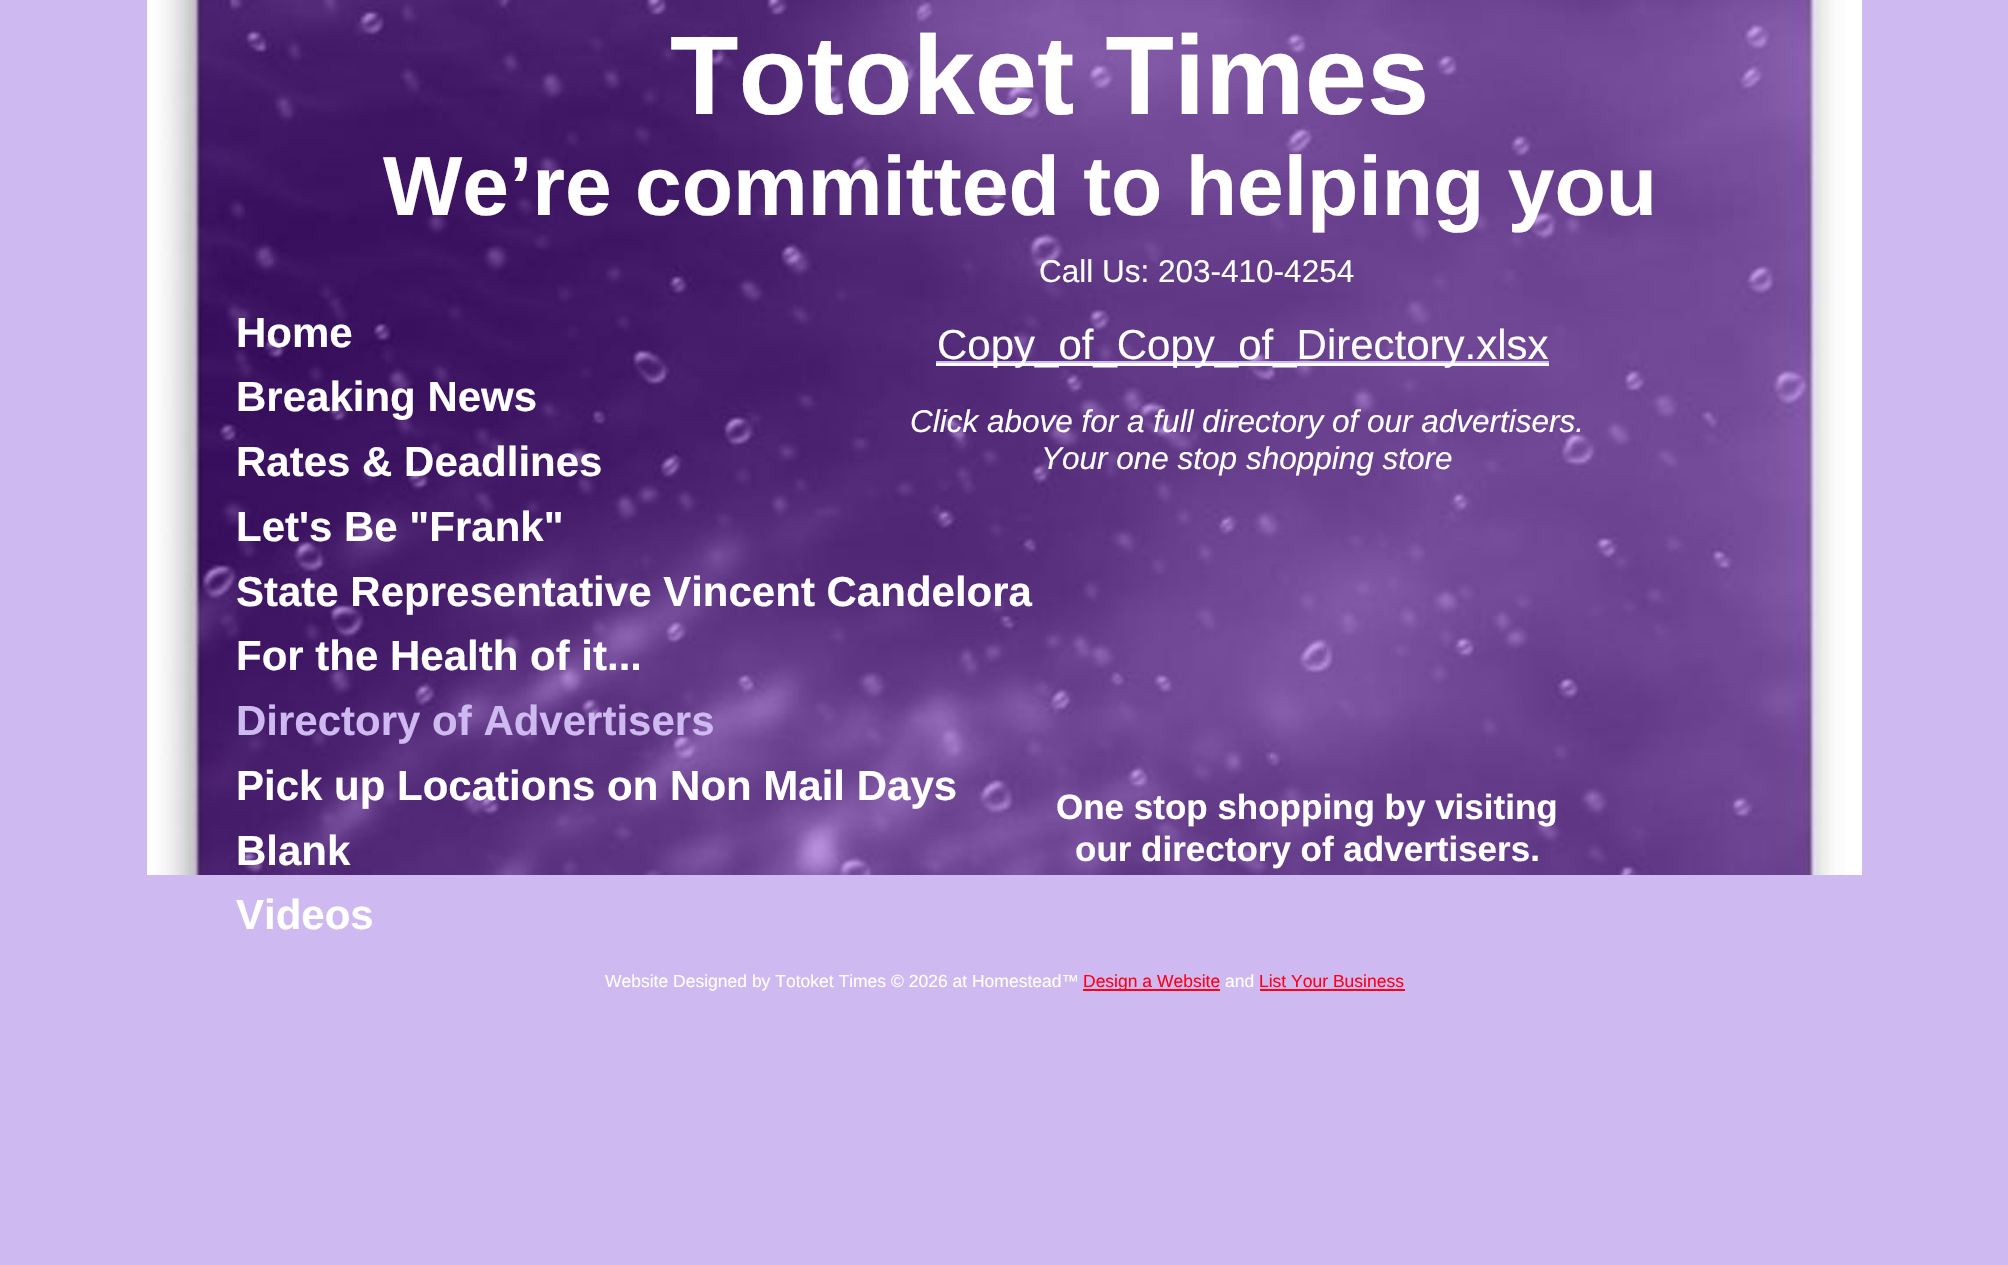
void draw(SkCanvas* canvas) {
	SkPaint fill;
	fill.setAntiAlias(true);
	auto makeFont = [&](const char* family, int weight, float size, bool italic = false) {
		SkFontStyle style(weight, SkFontStyle::kNormal_Width,
			italic ? SkFontStyle::kItalic_Slant : SkFontStyle::kUpright_Slant);
		SkFont result(fontMgr->matchFamilyStyle(family, style), size);
		result.setSubpixel(true);
		return result;
	};
	auto text = [&](const char* s, float x, float y, const SkFont& font) {
		canvas->drawString(s, x, y, font, fill);
	};
	auto box = [&](float l, float t, float r, float b) {
		canvas->drawRect(SkRect::MakeLTRB(l, t, r, b), fill);
	};
	auto picture = [&](const char* path, float l, float t, float r, float b) {
		auto image = SkImages::DeferredFromEncodedData(SkData::MakeFromFileName(path));
		canvas->drawImageRect(image, SkRect::MakeLTRB(l, t, r, b), SkSamplingOptions());
	};
	canvas->clear(0xFFCEB9F0);
	picture("image0.png", 147, 0, 1862, 875);
	fill.setColor(0xFFFFFFFF);
	box(936, 363, 1549, 366);
	fill.setColor(0xFFCEB9F0);
	box(936, 361, 1549, 363);
	fill.setColor(0xFFFF0018);
	box(1083, 989, 1220, 991);
	box(1260, 989, 1405, 991);
	auto font1 = makeFont("Liberation Sans", 700, 112);
	fill.setColor(0xFFFFFFFF);
	text("Totoket Times", 670, 114, font1);
	auto font2 = makeFont("Liberation Sans", 700, 84);
	text("We’re committed to helping you", 383, 215, font2);
	auto font3 = makeFont("Liberation Sans", 400, 31.5f);
	text("Call Us: 203-410-4254", 1039, 282, font3);
	auto font4 = makeFont("Liberation Sans", 700, 42);
	text("Home", 236, 347, font4);
	text("Breaking News", 236, 411, font4);
	text("Rates & Deadlines", 236, 476, font4);
	text("Let's Be \"Frank\"", 236, 541, font4);
	text("State Representative Vincent Candelora", 236, 606, font4);
	text("For the Health of it...", 236, 670, font4);
	fill.setColor(0xFFCEB9F0);
	text("Directory of Advertisers", 236, 735, font4);
	fill.setColor(0xFFFFFFFF);
	text("Pick up Locations on Non Mail Days", 236, 800, font4);
	text("Blank", 236, 865, font4);
	text("Videos", 236, 929, font4);
	auto font5 = makeFont("Liberation Sans", 400, 42);
	text("Copy_of_Copy_of_Directory.xlsx", 937, 359, font5);
	auto font6 = makeFont("Liberation Sans", 400, 31.5f, true);
	text("Click above for a full directory of our advertisers.", 910, 432, font6);
	text("Your one stop shopping store", 1041, 469, font6);
	auto font7 = makeFont("Liberation Sans", 700, 35);
	text("One stop shopping by visiting", 1056, 819, font7);
	text("our directory of advertisers.", 1075, 861, font7);
	auto font8 = makeFont("Liberation Sans", 400, 17.5f);
	text("Website Designed by Totoket Times © 2026 at Homestead™", 605, 987, font8);
	fill.setColor(0xFFFF0018);
	text("Design a Website", 1083, 987, font8);
	fill.setColor(0xFFFFFFFF);
	text("and", 1225, 987, font8);
	fill.setColor(0xFFFF0018);
	text("List Your Business", 1259, 987, font8);
}
